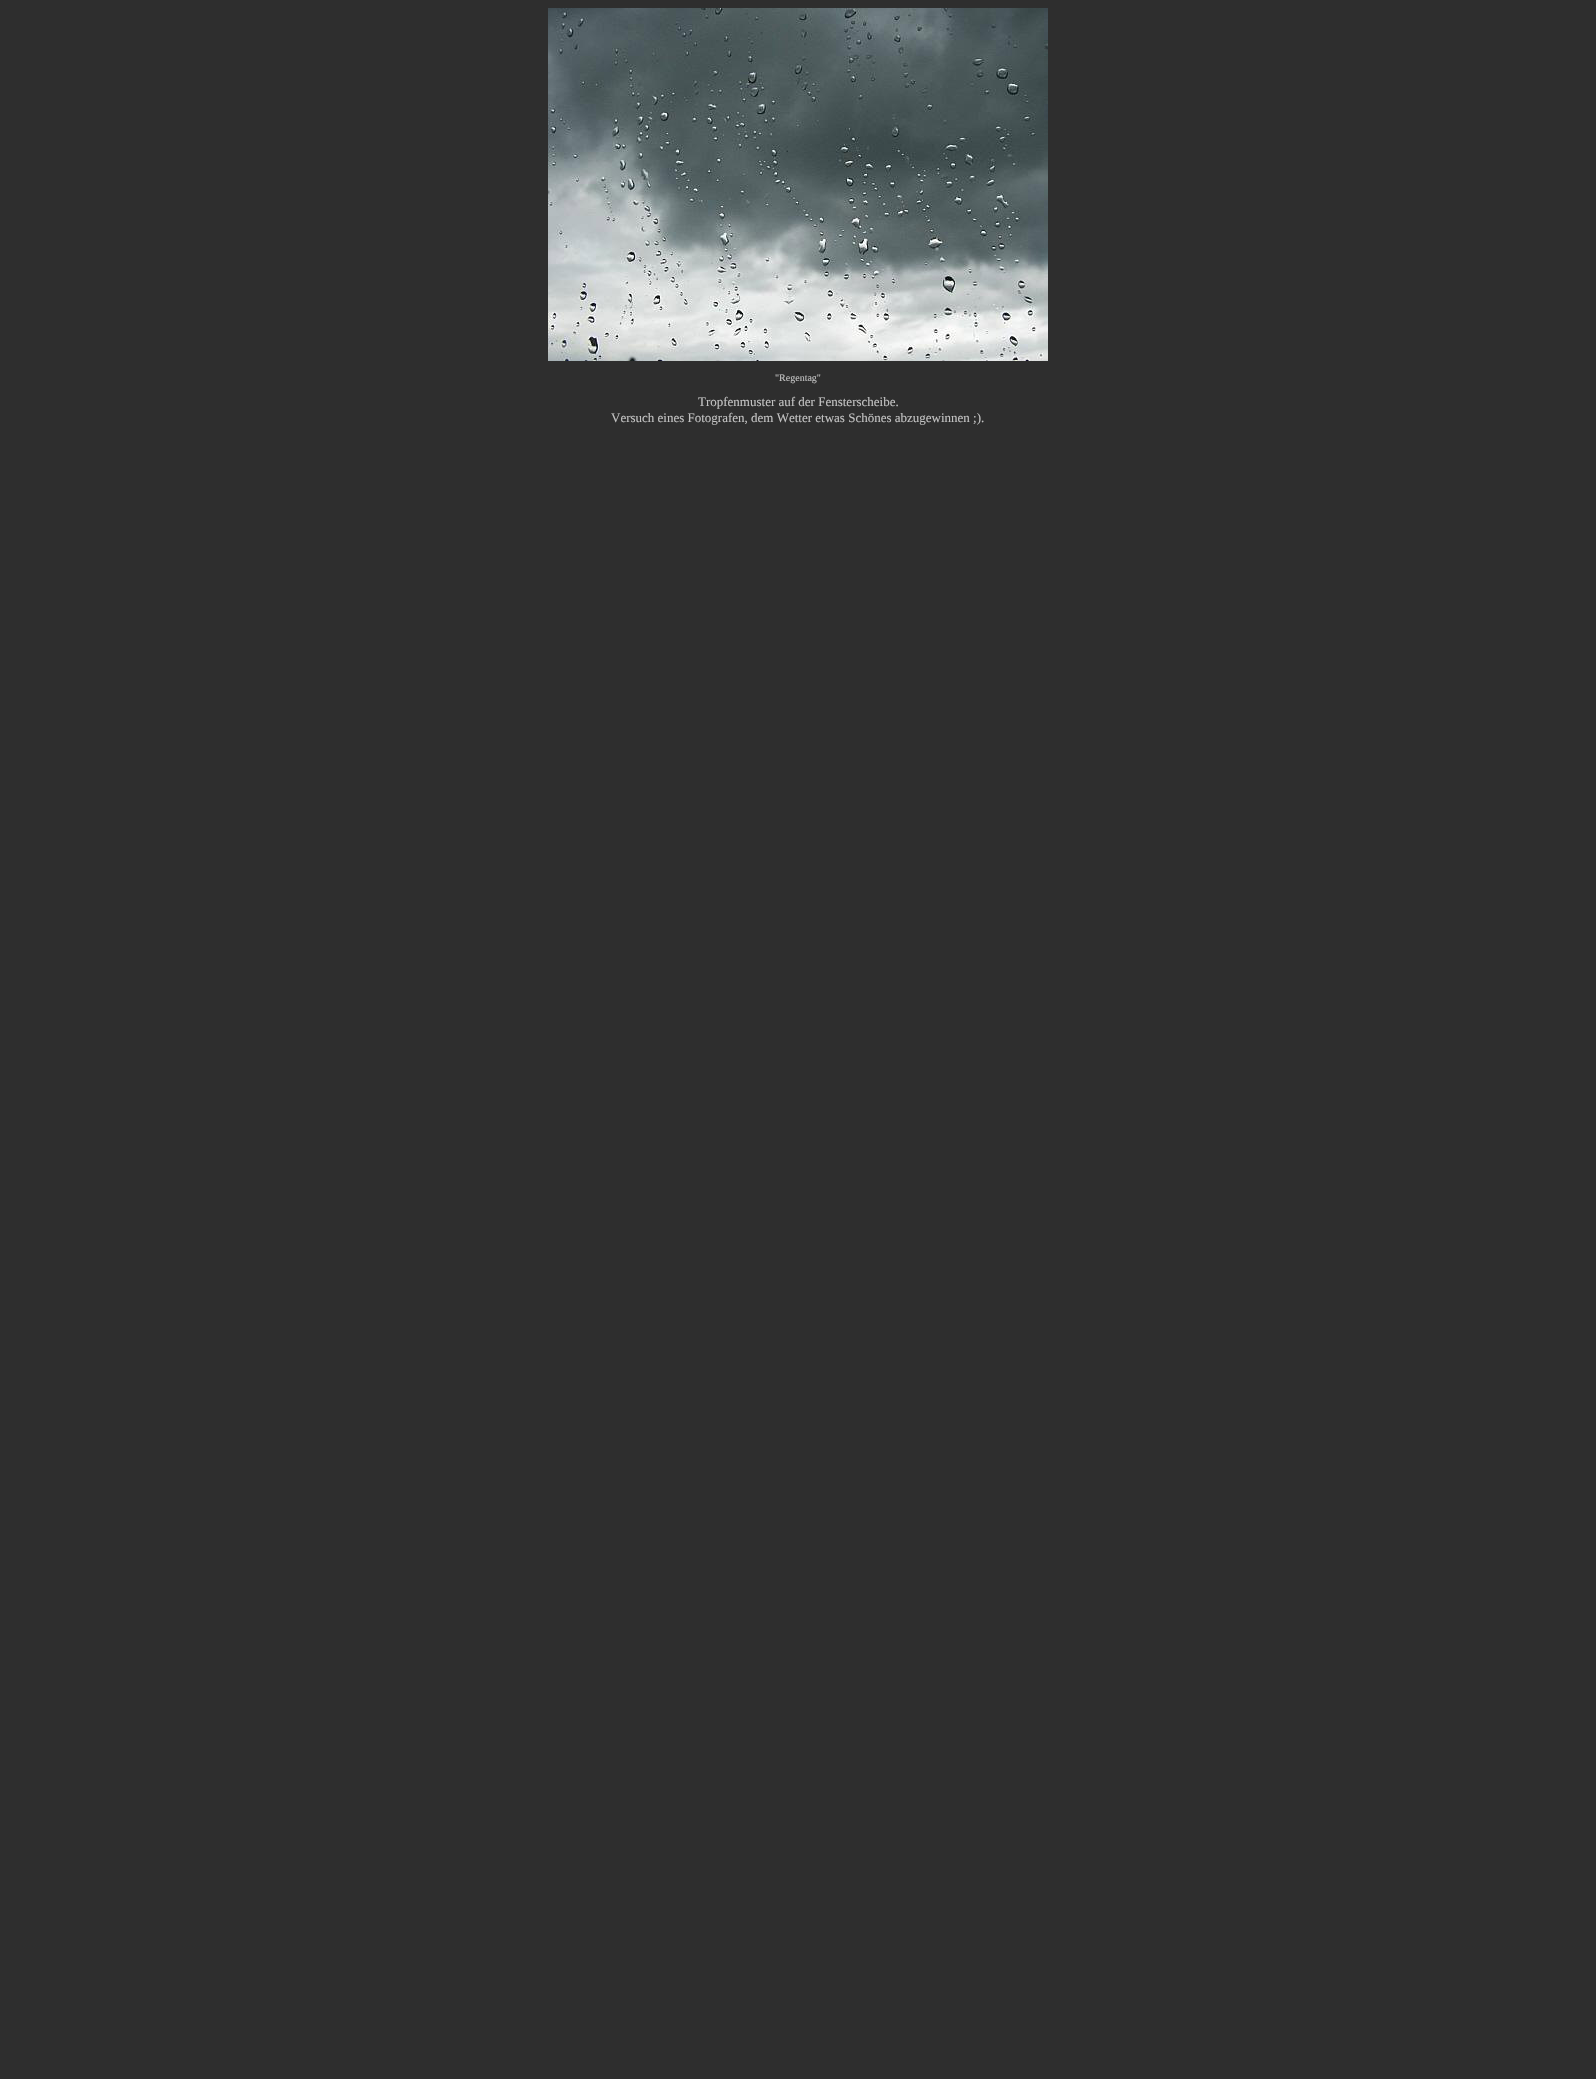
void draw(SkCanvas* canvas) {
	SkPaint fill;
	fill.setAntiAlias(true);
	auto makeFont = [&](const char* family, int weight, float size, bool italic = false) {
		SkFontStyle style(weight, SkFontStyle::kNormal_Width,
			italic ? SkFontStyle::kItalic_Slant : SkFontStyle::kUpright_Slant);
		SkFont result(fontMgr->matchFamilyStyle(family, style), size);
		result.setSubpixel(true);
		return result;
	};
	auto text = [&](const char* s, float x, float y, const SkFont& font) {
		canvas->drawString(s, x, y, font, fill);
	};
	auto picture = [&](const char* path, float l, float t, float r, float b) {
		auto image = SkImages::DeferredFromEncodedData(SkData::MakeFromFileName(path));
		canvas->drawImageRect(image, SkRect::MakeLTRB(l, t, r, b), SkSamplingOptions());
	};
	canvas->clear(0xFF2E2E2E);
	picture("image0.png", 548, 8, 1048, 361);
	auto font1 = makeFont("Liberation Serif", 400, 10);
	fill.setColor(0xFFC1C1C1);
	text("\"Regentag\"", 775, 381, font1);
	auto font2 = makeFont("Liberation Serif", 400, 13);
	text("Tropfenmuster auf der Fensterscheibe.", 698, 406, font2);
	text("Versuch eines Fotografen, dem Wetter etwas Schönes abzugewinnen ;).", 611, 422, font2);
}
